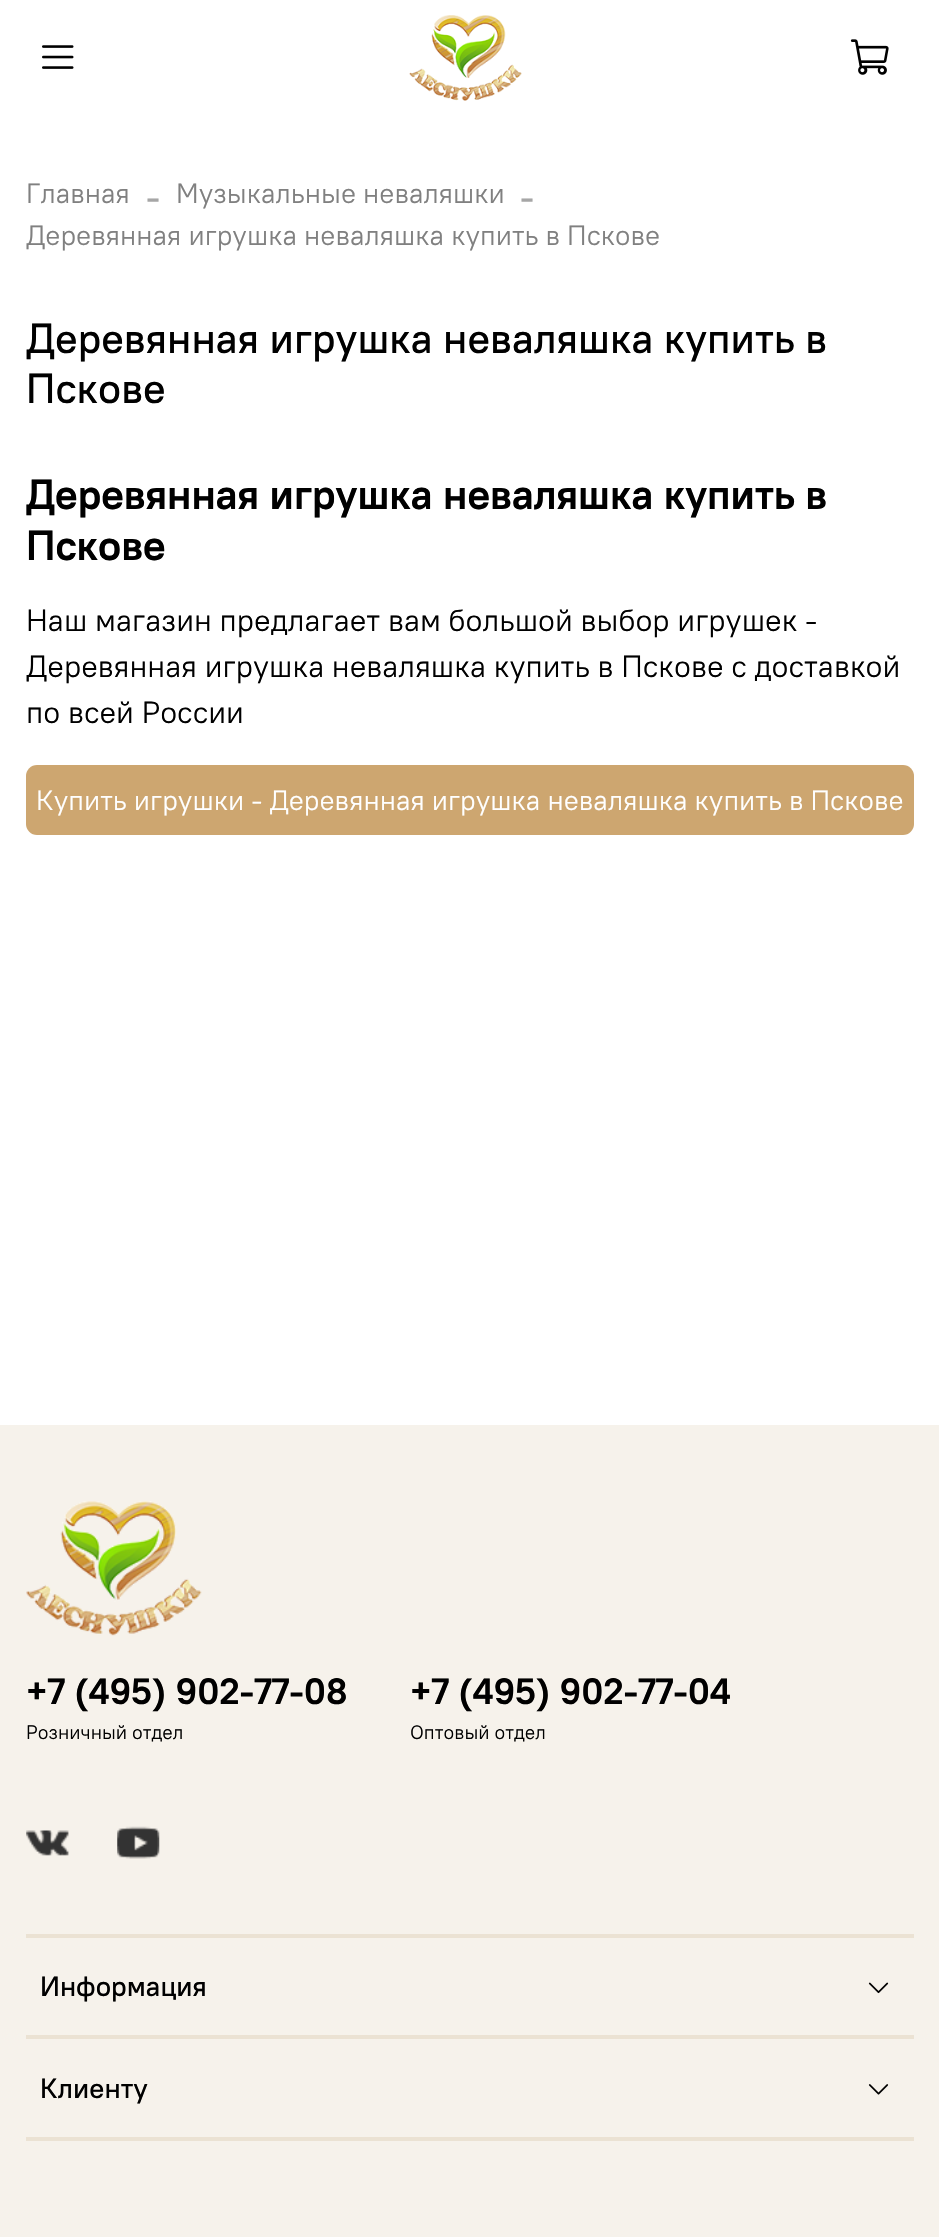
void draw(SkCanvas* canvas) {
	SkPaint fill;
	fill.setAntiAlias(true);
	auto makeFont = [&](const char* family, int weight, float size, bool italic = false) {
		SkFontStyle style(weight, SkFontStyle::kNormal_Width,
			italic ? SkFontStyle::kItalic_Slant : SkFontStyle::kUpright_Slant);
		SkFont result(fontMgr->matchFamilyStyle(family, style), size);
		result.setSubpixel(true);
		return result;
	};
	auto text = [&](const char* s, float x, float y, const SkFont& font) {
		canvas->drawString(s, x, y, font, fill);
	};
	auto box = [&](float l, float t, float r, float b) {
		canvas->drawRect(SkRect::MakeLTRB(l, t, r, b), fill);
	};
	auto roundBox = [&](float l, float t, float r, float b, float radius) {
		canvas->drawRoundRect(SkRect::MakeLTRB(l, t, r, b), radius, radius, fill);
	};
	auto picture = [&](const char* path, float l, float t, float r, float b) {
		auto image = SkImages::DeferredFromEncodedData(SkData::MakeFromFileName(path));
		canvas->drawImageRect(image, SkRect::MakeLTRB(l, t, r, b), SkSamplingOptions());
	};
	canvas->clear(0xFFFFFFFF);
	picture("image0.png", 42, 45, 74, 69);
	picture("image1.png", 409, 15, 522, 101);
	picture("image2.png", 850, 39, 889, 75);
	fill.setColor(0xFFCDA670);
	roundBox(26, 765, 914, 835, 11);
	fill.setColor(0xFFF6F2EB);
	box(0, 1425, 939, 2237);
	picture("image3.png", 26, 1501, 202, 1636);
	picture("image4.png", 26, 1830, 69, 1856);
	picture("image5.png", 117, 1826, 160, 1859);
	fill.setColor(0xFFEBE2D3);
	box(26, 1934, 914, 1938);
	picture("image6.png", 868, 1982, 889, 1994);
	box(26, 2035, 914, 2039);
	box(26, 2137, 914, 2141);
	picture("image7.png", 868, 2084, 889, 2095);
	auto font1 = makeFont("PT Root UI", 400, 28);
	fill.setColor(0xFF808080);
	text("Главная", 26, 203, font1);
	auto font2 = makeFont("Liberation Serif", 400, 42);
	fill.setColor(0xFFA6A6A6);
	text("-", 146, 210, font2);
	fill.setColor(0xFF808080);
	text("Музыкальные неваляшки", 176, 203, font1);
	fill.setColor(0xFFA6A6A6);
	text("-", 520, 210, font2);
	fill.setColor(0xFF808080);
	text("Деревянная игрушка неваляшка купить в Пскове", 26, 245, font1);
	auto font3 = makeFont("PT Root UI", 500, 42);
	fill.setColor(0xFF000000);
	text("Деревянная игрушка неваляшка купить в", 26, 353, font3);
	text("Пскове", 26, 403, font3);
	auto font4 = makeFont("PT Root UI", 700, 42);
	text("Деревянная игрушка неваляшка купить в", 26, 509, font4);
	text("Пскове", 26, 560, font4);
	auto font5 = makeFont("PT Root UI", 400, 30.8f);
	text("Наш магазин предлагает вам большой выбор игрушек -", 26, 631, font5);
	text("Деревянная игрушка неваляшка купить в Пскове с доставкой", 26, 677, font5);
	text("по всей России", 26, 723, font5);
	fill.setColor(0xFFFFFFFF);
	text("Купить игрушки - Деревянная игрушка неваляшка купить в Пскове", 36, 810, font1);
	auto font6 = makeFont("PT Root UI", 700, 36.5f);
	fill.setColor(0xFF000000);
	text("+7 (495) 902-77-08", 26, 1704, font6);
	auto font7 = makeFont("PT Root UI", 400, 19.5f);
	text("Розничный отдел", 26, 1739, font7);
	text("+7 (495) 902-77-04", 410, 1704, font6);
	text("Оптовый отдел", 410, 1739, font7);
	auto font8 = makeFont("PT Root UI", 500, 28);
	text("Информация", 40, 1996, font8);
	text("Клиенту", 40, 2098, font8);
}
